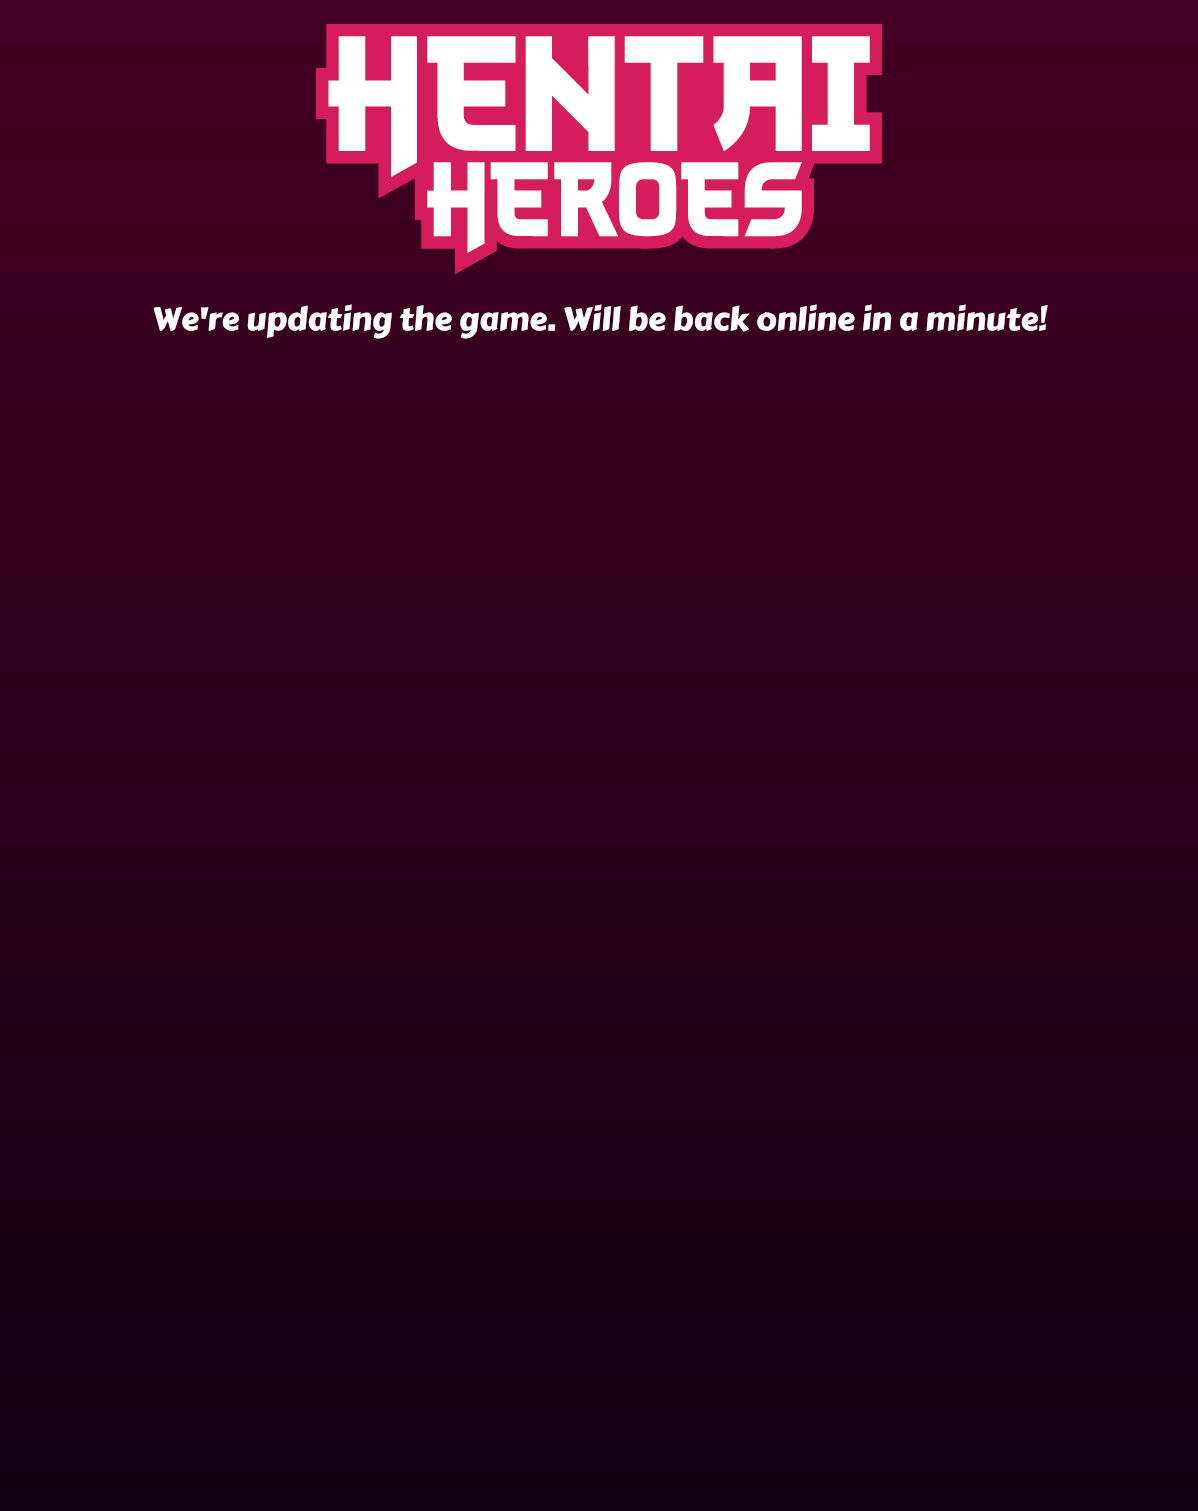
void draw(SkCanvas* canvas) {
	SkPaint fill;
	fill.setAntiAlias(true);
	auto makeFont = [&](const char* family, int weight, float size, bool italic = false) {
		SkFontStyle style(weight, SkFontStyle::kNormal_Width,
			italic ? SkFontStyle::kItalic_Slant : SkFontStyle::kUpright_Slant);
		SkFont result(fontMgr->matchFamilyStyle(family, style), size);
		result.setSubpixel(true);
		return result;
	};
	auto text = [&](const char* s, float x, float y, const SkFont& font) {
		canvas->drawString(s, x, y, font, fill);
	};
	auto box = [&](float l, float t, float r, float b) {
		canvas->drawRect(SkRect::MakeLTRB(l, t, r, b), fill);
	};
	auto picture = [&](const char* path, float l, float t, float r, float b) {
		auto image = SkImages::DeferredFromEncodedData(SkData::MakeFromFileName(path));
		canvas->drawImageRect(image, SkRect::MakeLTRB(l, t, r, b), SkSamplingOptions());
	};
	canvas->clear(0xFFFFFFFF);
	{
		const SkColor colors[] = {0xFF440022, 0xFF110011};
		const float stops[] = {0, 1};
		const SkPoint ends[] = {{599, 0}, {599, 1511}};
		fill.setShader(SkGradientShader::MakeLinear(ends, colors, stops, 2, SkTileMode::kClamp));
		fill.setAlpha(255);
	}
	box(0, 0, 1198, 1511);
	picture("image0.png", 316, 24, 882, 274);
	auto font1 = makeFont("Carter One", 400, 32);
	fill.setShader(nullptr);
	fill.setColor(0xFFFFFFFF);
	text("We're updating the game. Will be back online in a minute!", 152, 330, font1);
}
